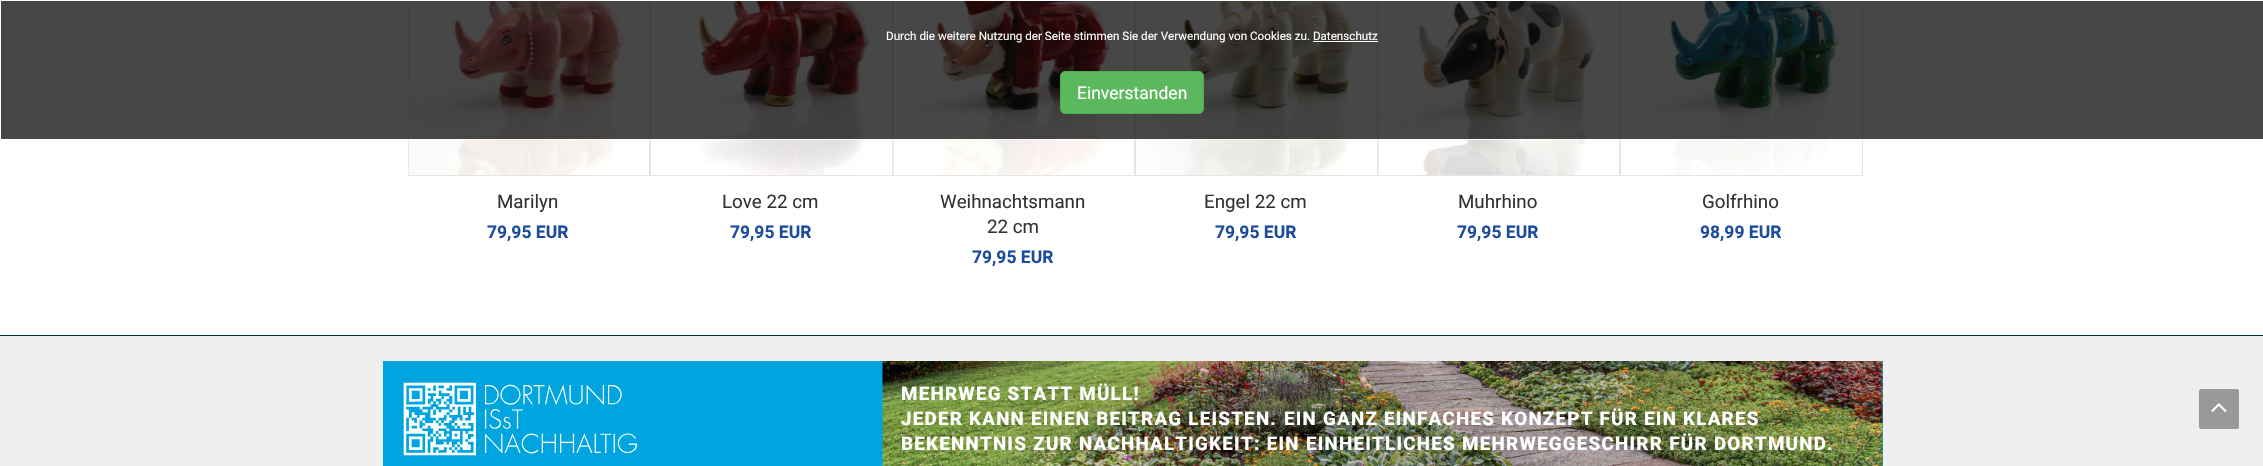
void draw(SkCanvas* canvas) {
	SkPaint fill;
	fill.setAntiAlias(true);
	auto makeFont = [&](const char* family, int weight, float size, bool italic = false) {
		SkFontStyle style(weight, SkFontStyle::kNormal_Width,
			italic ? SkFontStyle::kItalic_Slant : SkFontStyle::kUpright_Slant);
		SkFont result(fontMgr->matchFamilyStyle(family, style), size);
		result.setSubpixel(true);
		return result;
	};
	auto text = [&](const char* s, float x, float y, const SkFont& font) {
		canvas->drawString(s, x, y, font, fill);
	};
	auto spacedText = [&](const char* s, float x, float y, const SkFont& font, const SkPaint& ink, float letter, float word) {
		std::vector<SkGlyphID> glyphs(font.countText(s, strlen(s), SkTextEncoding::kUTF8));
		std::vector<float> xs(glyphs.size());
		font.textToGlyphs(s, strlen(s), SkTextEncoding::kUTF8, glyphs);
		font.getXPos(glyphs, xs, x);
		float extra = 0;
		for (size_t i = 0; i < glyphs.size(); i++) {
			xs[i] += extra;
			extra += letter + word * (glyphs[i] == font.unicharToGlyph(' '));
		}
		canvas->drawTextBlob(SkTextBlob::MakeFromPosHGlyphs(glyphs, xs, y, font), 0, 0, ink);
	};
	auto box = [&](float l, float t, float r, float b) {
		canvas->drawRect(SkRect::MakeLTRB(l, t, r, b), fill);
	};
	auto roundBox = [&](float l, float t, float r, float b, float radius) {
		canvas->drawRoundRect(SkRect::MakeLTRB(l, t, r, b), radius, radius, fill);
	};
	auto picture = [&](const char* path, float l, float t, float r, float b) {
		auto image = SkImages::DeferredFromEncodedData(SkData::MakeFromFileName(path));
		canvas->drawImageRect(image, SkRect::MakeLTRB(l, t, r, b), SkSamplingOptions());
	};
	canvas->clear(0xFFFFFFFF);
	fill.setStyle(SkPaint::kStroke_Style);
	fill.setStrokeWidth(1);
	fill.setColor(0xFFE5E5E5);
	canvas->drawRect(SkRect::MakeLTRB(408.5f, -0.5f, 649.5f, 175.5f), fill);
	picture("image0.png", 408, 1, 625, 175);
	canvas->drawRect(SkRect::MakeLTRB(650.5f, -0.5f, 892.5f, 175.5f), fill);
	picture("image1.png", 698, 1, 879, 175);
	canvas->drawRect(SkRect::MakeLTRB(893.5f, -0.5f, 1134.5f, 175.5f), fill);
	picture("image2.png", 893, 1, 1111, 175);
	canvas->drawRect(SkRect::MakeLTRB(1135.5f, -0.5f, 1377.5f, 175.5f), fill);
	picture("image3.png", 1138, 1, 1357, 175);
	canvas->drawRect(SkRect::MakeLTRB(1378.5f, -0.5f, 1619.5f, 175.5f), fill);
	picture("image4.png", 1378, 1, 1596, 175);
	canvas->drawRect(SkRect::MakeLTRB(1620.5f, -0.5f, 1862.5f, 175.5f), fill);
	picture("image5.png", 1645, 1, 1842, 175);
	fill.setStyle(SkPaint::kFill_Style);
	fill.setColor(0xBF0A0A0A);
	canvas->drawRect(SkRect::MakeLTRB(0.5f, 0.5f, 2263.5f, 139.5f), fill);
	fill.setStyle(SkPaint::kStroke_Style);
	fill.setColor(0xFFFFFFFF);
	canvas->drawRect(SkRect::MakeLTRB(0.5f, 0.5f, 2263.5f, 139.5f), fill);
	fill.setStyle(SkPaint::kFill_Style);
	box(1313, 41, 1378, 42);
	fill.setColor(0xFF5CB85C);
	canvas->drawRoundRect(SkRect::MakeLTRB(1060.5f, 71.5f, 1203.5f, 113.5f), 4.5f, 4.5f, fill);
	fill.setStyle(SkPaint::kStroke_Style);
	fill.setColor(0xFF4CAE4C);
	canvas->drawRoundRect(SkRect::MakeLTRB(1060.5f, 71.5f, 1203.5f, 113.5f), 4.5f, 4.5f, fill);
	fill.setStyle(SkPaint::kFill_Style);
	fill.setColor(0xFFEFEFEF);
	box(0, 336, 2263, 466);
	fill.setColor(0xFF003333);
	box(0, 335, 2263, 336);
	fill.setColor(0xFF00A5DF);
	box(383, 361, 1883, 466);
	picture("image6.png", 403, 382, 637, 456);
	picture("image7.png", 882, 361, 1883, 466);
	fill.setColor(0xFF999999);
	roundBox(2199, 389, 2239, 429, 2.5f);
	picture("image8.png", 2211, 403, 2227, 412);
	auto font1 = makeFont("Roboto", 400, 11.65f);
	fill.setColor(0xFFFFFFFF);
	text("Durch die weitere Nutzung der Seite stimmen Sie der Verwendung von Cookies zu. Datenschutz", 886, 40, font1);
	auto font2 = makeFont("Roboto", 400, 17.5f);
	text("Einverstanden", 1077, 99, font2);
	auto font3 = makeFont("Roboto", 400, 18.75f);
	fill.setColor(0xFF333333);
	text("Marilyn", 497, 208, font3);
	auto font4 = makeFont("Roboto", 700, 17.5f);
	fill.setColor(0xFF1D4C9E);
	text("79,95 EUR", 487, 238, font4);
	fill.setColor(0xFF333333);
	text("Love 22 cm", 722, 208, font3);
	fill.setColor(0xFF1D4C9E);
	text("79,95 EUR", 730, 238, font4);
	fill.setColor(0xFF333333);
	text("Weihnachtsmann", 940, 208, font3);
	text("22 cm", 987, 233, font3);
	fill.setColor(0xFF1D4C9E);
	text("79,95 EUR", 972, 263, font4);
	fill.setColor(0xFF333333);
	text("Engel 22 cm", 1204, 208, font3);
	fill.setColor(0xFF1D4C9E);
	text("79,95 EUR", 1215, 238, font4);
	fill.setColor(0xFF333333);
	text("Muhrhino", 1458, 208, font3);
	fill.setColor(0xFF1D4C9E);
	text("79,95 EUR", 1457, 238, font4);
	fill.setColor(0xFF333333);
	text("Golfrhino", 1702, 208, font3);
	fill.setColor(0xFF1D4C9E);
	text("98,99 EUR", 1700, 238, font4);
	auto font5 = makeFont("Roboto", 800, 18.75f);
	fill.setColor(0xFFFFFFFF);
	spacedText("MEHRWEG STATT MÜLL!", 901, 400, font5, fill, 1.25f, 0);
	spacedText("JEDER KANN EINEN BEITRAG LEISTEN.", 901, 425, font5, fill, 1.25f, 0);
	spacedText("EIN GANZ EINFACHES KONZEPT FÜR EIN KLARES", 1284, 425, font5, fill, 1.25f, 0);
	spacedText("BEKENNTNIS ZUR NACHHALTIGKEIT: EIN EINHEITLICHES MEHRWEGGESCHIRR FÜR DORTMUND.", 901, 450, font5, fill, 1.25f, 0.25f);
}
